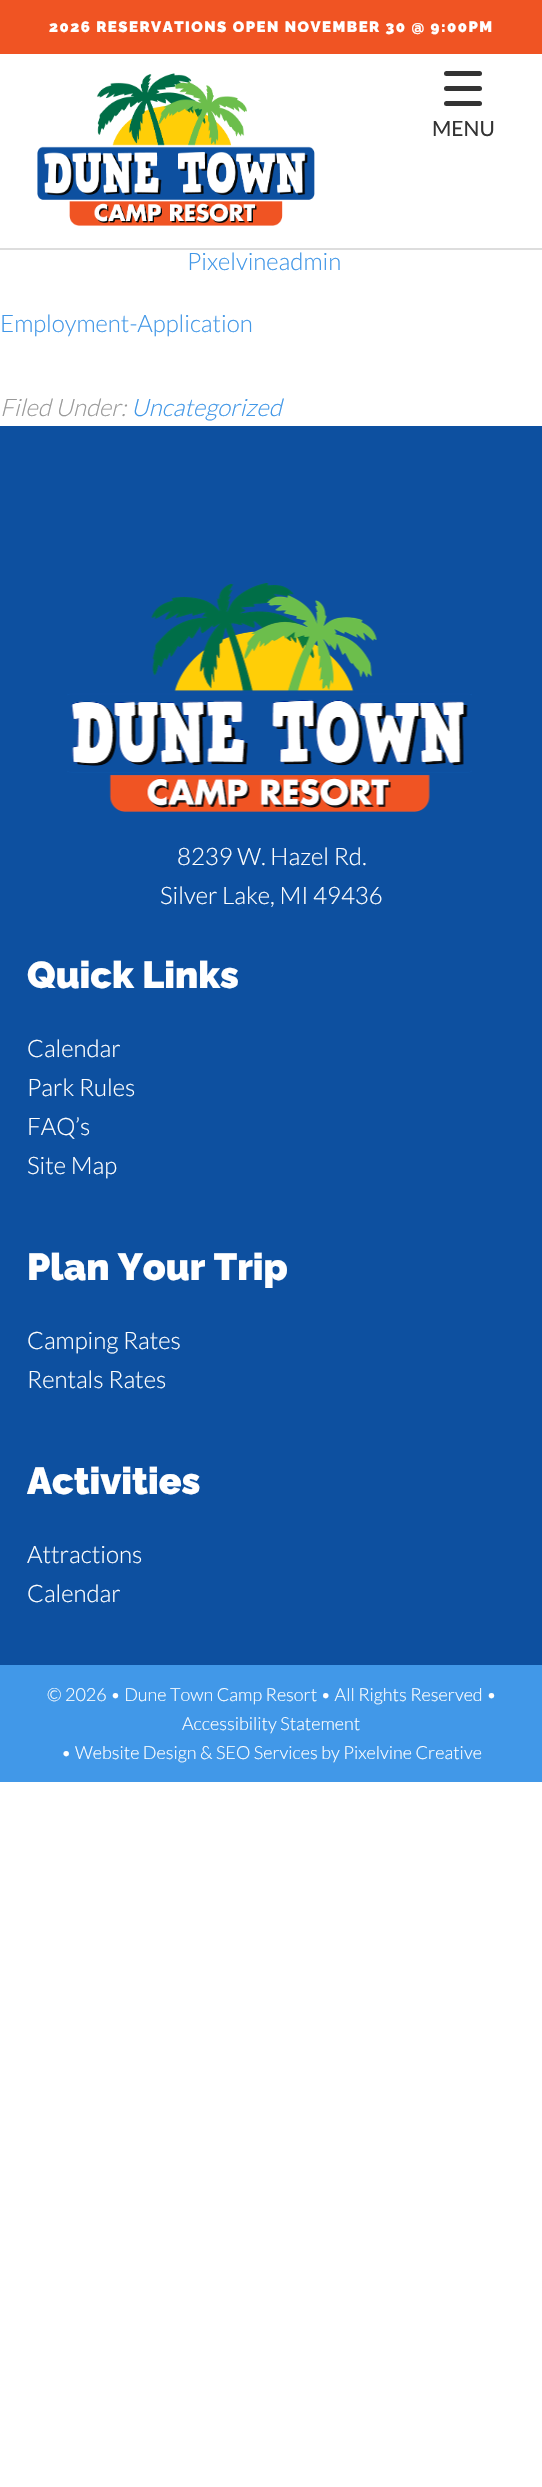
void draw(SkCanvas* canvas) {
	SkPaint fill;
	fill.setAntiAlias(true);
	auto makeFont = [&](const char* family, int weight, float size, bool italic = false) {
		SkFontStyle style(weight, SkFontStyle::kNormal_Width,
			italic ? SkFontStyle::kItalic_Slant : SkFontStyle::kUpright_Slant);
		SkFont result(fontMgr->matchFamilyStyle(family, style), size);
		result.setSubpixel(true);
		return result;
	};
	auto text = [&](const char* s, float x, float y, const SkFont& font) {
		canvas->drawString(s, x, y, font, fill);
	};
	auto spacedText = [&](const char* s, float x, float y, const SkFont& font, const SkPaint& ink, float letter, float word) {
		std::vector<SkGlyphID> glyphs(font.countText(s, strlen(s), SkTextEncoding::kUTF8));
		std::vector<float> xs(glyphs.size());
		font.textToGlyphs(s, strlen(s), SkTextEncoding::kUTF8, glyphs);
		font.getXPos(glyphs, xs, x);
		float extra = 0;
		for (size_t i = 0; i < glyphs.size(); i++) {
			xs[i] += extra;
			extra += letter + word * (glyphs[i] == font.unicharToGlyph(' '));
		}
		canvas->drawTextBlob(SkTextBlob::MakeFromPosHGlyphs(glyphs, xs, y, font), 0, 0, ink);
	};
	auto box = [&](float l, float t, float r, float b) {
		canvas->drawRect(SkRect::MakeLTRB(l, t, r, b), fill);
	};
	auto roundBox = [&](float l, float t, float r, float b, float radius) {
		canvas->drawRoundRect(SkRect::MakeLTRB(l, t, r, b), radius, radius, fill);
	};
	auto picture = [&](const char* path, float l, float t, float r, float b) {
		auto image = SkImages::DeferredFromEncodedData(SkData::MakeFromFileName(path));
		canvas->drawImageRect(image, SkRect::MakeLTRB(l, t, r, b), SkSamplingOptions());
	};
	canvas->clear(0xFFFFFFFF);
	fill.setColor(0xFFF05423);
	box(0, 0, 542, 54);
	fill.setColor(0xFFDDDDDD);
	box(0, 248, 542, 250);
	picture("image0.png", 37, 73, 315, 226);
	fill.setColor(0xFF0D50A0);
	box(0, 426, 542, 1665);
	picture("image1.png", 67, 583, 472, 812);
	fill.setColor(0xFF4198E8);
	box(0, 1665, 542, 1782);
	fill.setColor(0xFF333333);
	roundBox(444, 86, 482, 91, 2.5f);
	roundBox(444, 71, 482, 76, 2.5f);
	roundBox(444, 101, 482, 106, 2.5f);
	auto font1 = makeFont("Raleway", 900, 15);
	fill.setColor(0xFFFFFFFF);
	spacedText("2026 RESERVATIONS OPEN NOVEMBER 30 @ 9:00PM", 49, 32, font1, fill, 1.5f, 0);
	auto font2 = makeFont("Lato", 300, 24);
	fill.setColor(0xFF4197E7);
	text("Pixelvineadmin", 187, 270, font2);
	text("Employment-Application", 0, 332, font2);
	auto font3 = makeFont("Lato", 300, 24, true);
	fill.setColor(0xFF999999);
	text("Filed Under:", 0, 416, font3);
	fill.setColor(0xFF4197E7);
	text("Uncategorized", 131, 416, font3);
	fill.setColor(0xFFFFFFFF);
	text("8239 W. Hazel Rd.", 177, 865, font2);
	text("Silver Lake, MI 49436", 160, 904, font2);
	auto font4 = makeFont("Raleway", 900, 37.5f);
	text("Quick Links", 27, 988, font4);
	text("Calendar", 27, 1057, font2);
	text("Park Rules", 27, 1096, font2);
	text("FAQ’s", 27, 1135, font2);
	text("Site Map", 27, 1174, font2);
	text("Plan Your Trip", 27, 1280, font4);
	text("Camping Rates", 27, 1349, font2);
	text("Rentals Rates", 27, 1388, font2);
	text("Activities", 27, 1494, font4);
	text("Attractions", 27, 1563, font2);
	text("Calendar", 27, 1602, font2);
	auto font5 = makeFont("Lato", 300, 18);
	text("© 2026 • Dune Town Camp Resort • All Rights Reserved •", 47, 1701, font5);
	text("Accessibility Statement", 182, 1730, font5);
	text("• Website Design & SEO Services by Pixelvine Creative", 61, 1759, font5);
	auto font6 = makeFont("Lato", 400, 21);
	fill.setColor(0xFF333333);
	text("MENU", 432, 136, font6);
}
